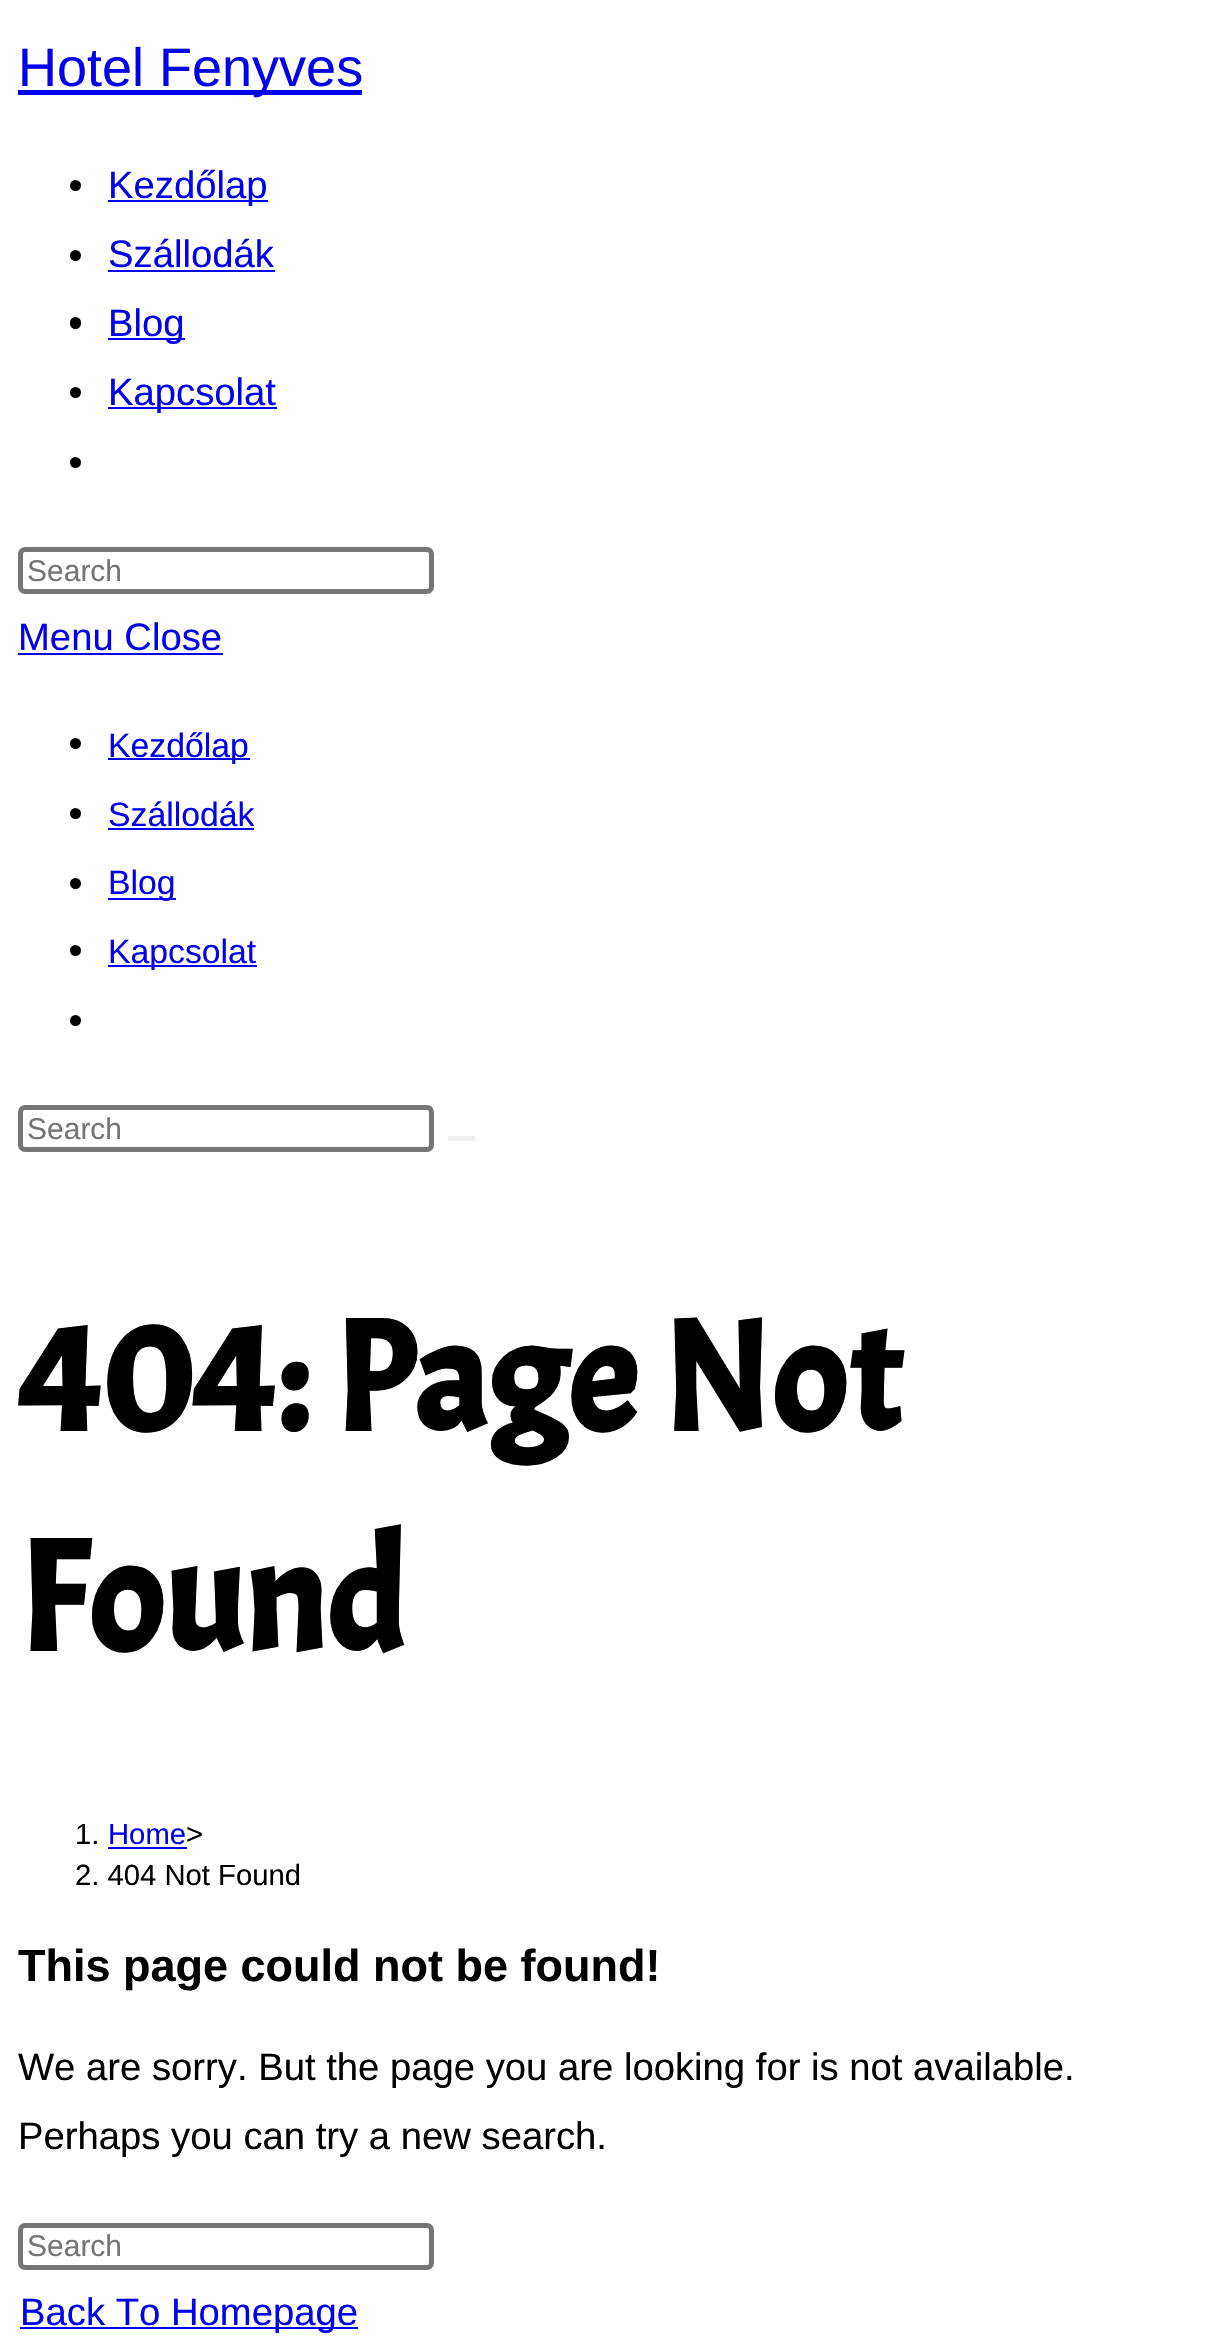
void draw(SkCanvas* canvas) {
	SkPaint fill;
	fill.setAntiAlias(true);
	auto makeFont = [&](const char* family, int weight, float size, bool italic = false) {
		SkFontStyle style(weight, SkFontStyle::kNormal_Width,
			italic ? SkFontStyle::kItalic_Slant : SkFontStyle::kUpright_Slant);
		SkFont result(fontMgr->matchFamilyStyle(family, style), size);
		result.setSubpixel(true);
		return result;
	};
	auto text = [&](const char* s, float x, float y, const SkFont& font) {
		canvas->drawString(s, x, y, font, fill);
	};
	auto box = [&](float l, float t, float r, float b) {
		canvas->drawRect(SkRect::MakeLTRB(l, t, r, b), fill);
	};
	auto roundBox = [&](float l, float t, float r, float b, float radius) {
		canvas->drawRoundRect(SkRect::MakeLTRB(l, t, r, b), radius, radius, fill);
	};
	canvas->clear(0xFFFFFFFF);
	fill.setColor(0xFF0000EE);
	box(18, 90, 362, 95);
	fill.setColor(0xFF000000);
	canvas->drawCircle(75.5f, 185.5f, 5.5f, fill);
	fill.setColor(0xFF0000EE);
	box(108, 200, 268, 202);
	fill.setColor(0xFF000000);
	canvas->drawCircle(75.5f, 255.5f, 5.5f, fill);
	fill.setColor(0xFF0000EE);
	box(108, 270, 275, 272);
	fill.setColor(0xFF000000);
	roundBox(70, 317, 81, 329, 5.5f);
	fill.setColor(0xFF0000EE);
	box(108, 338, 185, 340);
	fill.setColor(0xFF000000);
	canvas->drawCircle(75.5f, 392.5f, 5.5f, fill);
	fill.setColor(0xFF0000EE);
	box(108, 407, 277, 409);
	fill.setColor(0xFF000000);
	canvas->drawCircle(75.5f, 462.5f, 5.5f, fill);
	fill.setStyle(SkPaint::kStroke_Style);
	fill.setStrokeWidth(5);
	fill.setColor(0xFF767676);
	canvas->drawRoundRect(SkRect::MakeLTRB(20.5f, 549.5f, 431.5f, 591.5f), 4.5f, 4.5f, fill);
	fill.setStyle(SkPaint::kFill_Style);
	fill.setColor(0xFF0000EE);
	box(18, 653, 223, 655);
	fill.setColor(0xFF000000);
	canvas->drawCircle(75.5f, 743.5f, 5.5f, fill);
	fill.setColor(0xFF0000EE);
	box(108, 758, 250, 760);
	fill.setColor(0xFF000000);
	canvas->drawCircle(75.5f, 813.5f, 5.5f, fill);
	fill.setColor(0xFF0000EE);
	box(108, 828, 254, 830);
	fill.setColor(0xFF000000);
	canvas->drawCircle(75.5f, 883.5f, 5.5f, fill);
	fill.setColor(0xFF0000EE);
	box(108, 898, 176, 900);
	fill.setColor(0xFF000000);
	canvas->drawCircle(75.5f, 950.5f, 5.5f, fill);
	fill.setColor(0xFF0000EE);
	box(108, 965, 257, 967);
	fill.setColor(0xFF000000);
	canvas->drawCircle(75.5f, 1020.5f, 5.5f, fill);
	fill.setStyle(SkPaint::kStroke_Style);
	fill.setColor(0xFF767676);
	canvas->drawRoundRect(SkRect::MakeLTRB(20.5f, 1107.5f, 431.5f, 1149.5f), 4.5f, 4.5f, fill);
	fill.setStyle(SkPaint::kFill_Style);
	fill.setColor(0xFFEFEFEF);
	box(448, 1136, 475, 1141);
	fill.setColor(0xFF0000EE);
	box(108, 1847, 187, 1849);
	fill.setStyle(SkPaint::kStroke_Style);
	fill.setColor(0xFF767676);
	canvas->drawRoundRect(SkRect::MakeLTRB(20.5f, 2225.5f, 431.5f, 2267.5f), 4.5f, 4.5f, fill);
	fill.setStyle(SkPaint::kFill_Style);
	fill.setColor(0xFF0000EE);
	box(20, 2327, 358, 2329);
	auto font1 = makeFont("Liberation Sans", 400, 54);
	text("Hotel Fenyves", 18, 86, font1);
	auto font2 = makeFont("Liberation Sans", 400, 38.25f);
	text("Kezdőlap", 108, 198, font2);
	text("Szállodák", 108, 267, font2);
	text("Blog", 108, 336, font2);
	text("Kapcsolat", 108, 405, font2);
	auto font3 = makeFont("Liberation Sans", 400, 30);
	fill.setColor(0xFF757575);
	text("Search", 27, 581, font3);
	fill.setColor(0xFF0000EE);
	text("Menu Close", 18, 650, font2);
	auto font4 = makeFont("Liberation Sans", 400, 33.75f);
	text("Kezdőlap", 108, 757, font4);
	text("Szállodák", 108, 826, font4);
	text("Blog", 108, 894, font4);
	text("Kapcsolat", 108, 963, font4);
	fill.setColor(0xFF757575);
	text("Search", 27, 1139, font3);
	auto font5 = makeFont("Acme", 700, 157.5f);
	fill.setColor(0xFF000000);
	text("404: Page Not", 18, 1431, font5);
	text("Found", 18, 1651, font5);
	auto font6 = makeFont("Liberation Sans", 400, 29.25f);
	text("1.", 75, 1844, font6);
	fill.setColor(0xFF0000EE);
	text("Home", 108, 1844, font6);
	fill.setColor(0xFF000000);
	text(">", 186, 1844, font6);
	text("2. 404 Not Found", 75, 1885, font6);
	auto font7 = makeFont("Liberation Sans", 700, 45);
	text("This page could not be found!", 18, 1981, font7);
	text("We are sorry. But the page you are looking for is not available.", 18, 2080, font2);
	text("Perhaps you can try a new search.", 18, 2149, font2);
	fill.setColor(0xFF757575);
	text("Search", 27, 2256, font3);
	fill.setColor(0xFF0000EE);
	text("Back To Homepage", 20, 2325, font2);
}
